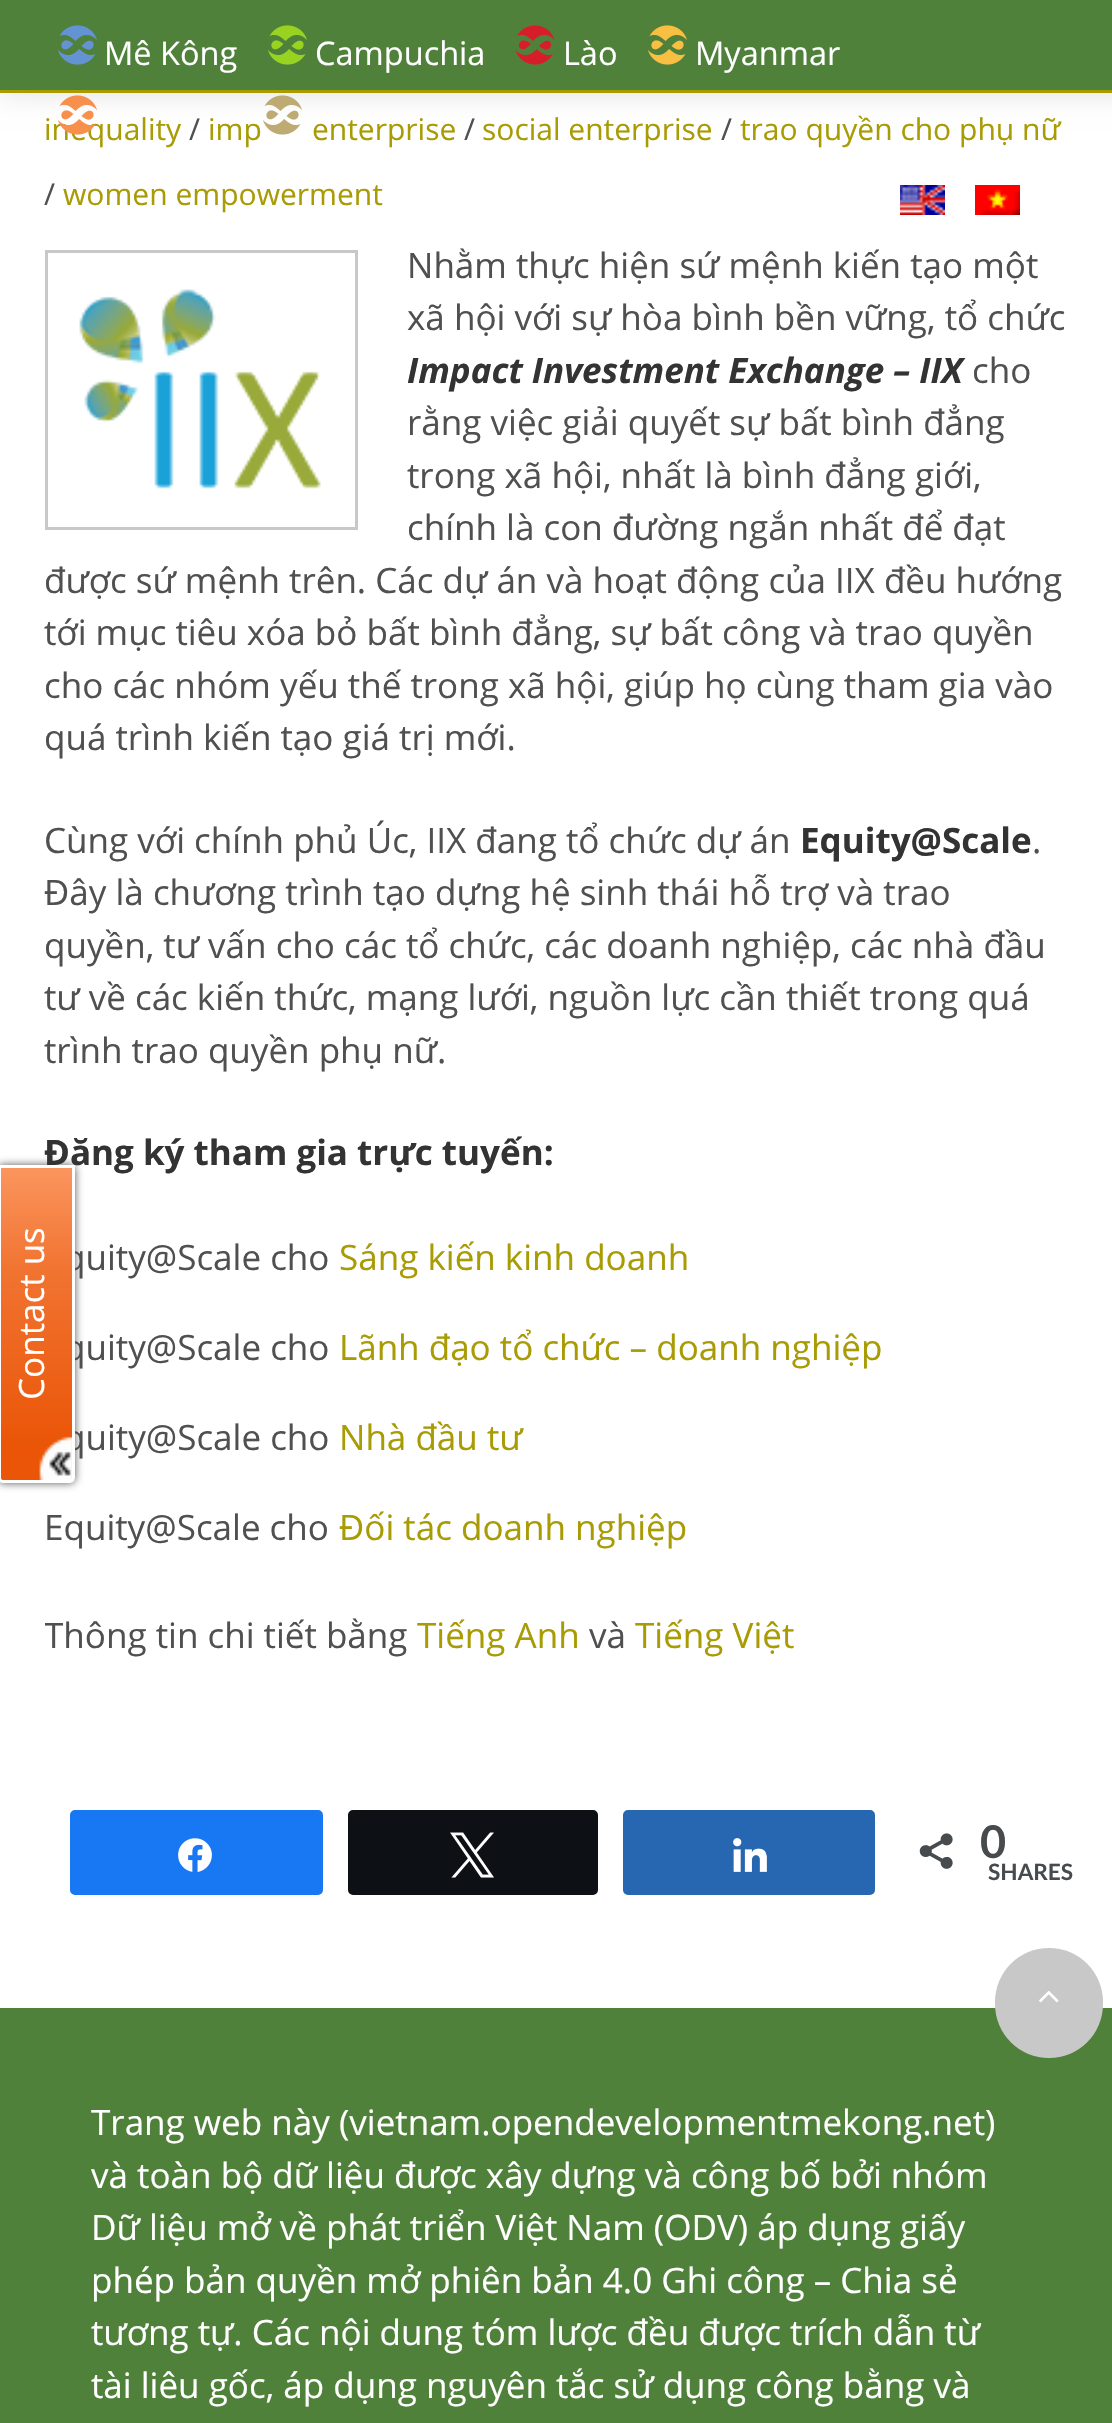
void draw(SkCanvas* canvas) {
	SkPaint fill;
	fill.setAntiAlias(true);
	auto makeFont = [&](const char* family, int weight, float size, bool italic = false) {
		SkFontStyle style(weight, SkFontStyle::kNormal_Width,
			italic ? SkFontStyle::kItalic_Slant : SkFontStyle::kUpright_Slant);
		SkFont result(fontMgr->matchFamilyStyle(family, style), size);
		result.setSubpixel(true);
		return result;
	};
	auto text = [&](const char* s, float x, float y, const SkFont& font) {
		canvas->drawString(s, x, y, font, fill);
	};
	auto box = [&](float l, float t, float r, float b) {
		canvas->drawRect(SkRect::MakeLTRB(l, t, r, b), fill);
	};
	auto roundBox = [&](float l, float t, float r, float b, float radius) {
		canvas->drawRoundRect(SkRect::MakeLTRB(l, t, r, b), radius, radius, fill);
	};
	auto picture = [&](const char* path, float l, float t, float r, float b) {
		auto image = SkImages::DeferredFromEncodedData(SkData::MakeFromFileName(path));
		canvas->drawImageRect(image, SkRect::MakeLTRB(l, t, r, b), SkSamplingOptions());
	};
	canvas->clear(0xFFFFFFFF);
	fill.setColor(0x1A000000);
	fill.setMaskFilter(SkMaskFilter::MakeBlur(kNormal_SkBlurStyle, 12.5f));
	canvas->drawRect(SkRect::MakeLTRB(0, 3, 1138, 95), fill);
	fill.setMaskFilter(nullptr);
	fill.setColor(0xFF50813B);
	box(0, 0, 1112, 90);
	fill.setColor(0xFFA89B04);
	box(0, 90, 1112, 93);
	picture("image0.png", 58, 25, 97, 65);
	picture("image1.png", 268, 25, 307, 65);
	picture("image2.png", 515, 25, 555, 65);
	picture("image3.png", 648, 25, 687, 65);
	picture("image5.png", 263, 95, 302, 135);
	picture("image6.png", 900, 185, 945, 215);
	picture("image7.png", 975, 185, 1020, 215);
	fill.setColor(0xFF555555);
	fill.setMaskFilter(SkMaskFilter::MakeBlur(kNormal_SkBlurStyle, 4));
	canvas->drawRoundRect(SkRect::MakeLTRB(-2, 1165, 75, 1483), 5, 5, fill);
	fill.setMaskFilter(nullptr);
	fill.setStyle(SkPaint::kStroke_Style);
	fill.setStrokeWidth(3);
	fill.setColor(0xFFC8C8C8);
	canvas->drawRect(SkRect::MakeLTRB(46.5f, 251.5f, 356.5f, 528.5f), fill);
	picture("image9.png", 79, 289, 321, 489);
	fill.setStyle(SkPaint::kFill_Style);
	fill.setColor(0xFF1877F2);
	canvas->drawRoundRect(SkRect::MakeLTRB(71.5f, 1811.5f, 321.5f, 1893.5f), 3.5f, 3.5f, fill);
	fill.setStyle(SkPaint::kStroke_Style);
	canvas->drawRoundRect(SkRect::MakeLTRB(71.5f, 1811.5f, 321.5f, 1893.5f), 3.5f, 3.5f, fill);
	picture("image10.png", 178, 1838, 212, 1872);
	fill.setStyle(SkPaint::kFill_Style);
	fill.setColor(0xFF0D1014);
	canvas->drawRoundRect(SkRect::MakeLTRB(349.5f, 1811.5f, 596.5f, 1893.5f), 3.5f, 3.5f, fill);
	fill.setStyle(SkPaint::kStroke_Style);
	canvas->drawRoundRect(SkRect::MakeLTRB(349.5f, 1811.5f, 596.5f, 1893.5f), 3.5f, 3.5f, fill);
	picture("image11.png", 450, 1832, 494, 1878);
	fill.setStyle(SkPaint::kFill_Style);
	fill.setColor(0xFF2767B1);
	canvas->drawRoundRect(SkRect::MakeLTRB(624.5f, 1811.5f, 873.5f, 1893.5f), 3.5f, 3.5f, fill);
	fill.setStyle(SkPaint::kStroke_Style);
	canvas->drawRoundRect(SkRect::MakeLTRB(624.5f, 1811.5f, 873.5f, 1893.5f), 3.5f, 3.5f, fill);
	picture("image12.png", 733, 1838, 767, 1872);
	picture("image13.png", 919, 1833, 953, 1869);
	fill.setStyle(SkPaint::kFill_Style);
	fill.setColor(0xFF50813B);
	box(0, 2008, 1112, 2423);
	fill.setColor(0xFFC8C8C8);
	roundBox(995, 1948, 1103, 2058, 54);
	picture("image14.png", 1039, 1991, 1059, 2003);
	auto font1 = makeFont("Open Sans", 400, 32.5f);
	fill.setColor(0xFFFFFFFF);
	text("Mê Kông", 104, 65, font1);
	text("Campuchia", 315, 65, font1);
	text("Lào", 563, 65, font1);
	text("Myanmar", 695, 65, font1);
	auto font2 = makeFont("Open Sans", 400, 30);
	fill.setColor(0xFFA89B04);
	text("inequality", 44, 140, font2);
	picture("image4.png", 58, 95, 97, 135);
	fill.setColor(0xFF505050);
	text("/", 189, 140, font2);
	fill.setColor(0xFFA89B04);
	text("imp", 208, 140, font2);
	text("enterprise", 312, 140, font2);
	fill.setColor(0xFF505050);
	text("/", 464, 140, font2);
	fill.setColor(0xFFA89B04);
	text("social enterprise", 482, 140, font2);
	fill.setColor(0xFF505050);
	text("/", 721, 140, font2);
	fill.setColor(0xFFA89B04);
	text("trao quyền cho phụ nữ", 740, 140, font2);
	fill.setColor(0xFF505050);
	text("/", 44, 205, font2);
	fill.setColor(0xFFA89B04);
	text("women empowerment", 63, 205, font2);
	auto font3 = makeFont("Open Sans", 400, 35);
	fill.setColor(0xFF505050);
	text("Nhằm thực hiện sứ mệnh kiến tạo một", 407, 278, font3);
	text("xã hội với sự hòa bình bền vững, tổ chức", 407, 330, font3);
	auto font4 = makeFont("Open Sans", 700, 35, true);
	fill.setColor(0xFF333333);
	text("Impact Investment Exchange – IIX", 407, 383, font4);
	fill.setColor(0xFF505050);
	text("cho", 972, 383, font3);
	text("rằng việc giải quyết sự bất bình đẳng", 407, 435, font3);
	text("trong xã hội, nhất là bình đẳng giới,", 407, 488, font3);
	text("chính là con đường ngắn nhất để đạt", 407, 540, font3);
	text("được sứ mệnh trên. Các dự án và hoạt động của IIX đều hướng", 44, 593, font3);
	text("tới mục tiêu xóa bỏ bất bình đẳng, sự bất công và trao quyền", 44, 645, font3);
	text("cho các nhóm yếu thế trong xã hội, giúp họ cùng tham gia vào", 44, 698, font3);
	text("quá trình kiến tạo giá trị mới.", 44, 750, font3);
	text("Cùng với chính phủ Úc, IIX đang tổ chức dự án", 44, 853, font3);
	auto font5 = makeFont("Open Sans", 700, 35);
	fill.setColor(0xFF333333);
	text("Equity@Scale", 800, 853, font5);
	fill.setColor(0xFF505050);
	text(".", 1032, 853, font3);
	text("Đây là chương trình tạo dựng hệ sinh thái hỗ trợ và trao", 44, 905, font3);
	text("quyền, tư vấn cho các tổ chức, các doanh nghiệp, các nhà đầu", 44, 958, font3);
	text("tư về các kiến thức, mạng lưới, nguồn lực cần thiết trong quá", 44, 1010, font3);
	text("trình trao quyền phụ nữ.", 44, 1063, font3);
	fill.setColor(0xFF333333);
	text("Đăng ký tham gia trực tuyến:", 44, 1165, font5);
	fill.setColor(0xFF505050);
	text("quity@Scale cho", 64, 1270, font3);
	fill.setColor(0xFFA89B04);
	text("Sáng kiến kinh doanh", 339, 1270, font3);
	fill.setColor(0xFF505050);
	text("quity@Scale cho", 64, 1360, font3);
	fill.setColor(0xFFA89B04);
	text("Lãnh đạo tổ chức – doanh nghiệp", 339, 1360, font3);
	fill.setColor(0xFF505050);
	text("quity@Scale cho", 64, 1450, font3);
	{
		const SkColor colors[] = {0xFFFECCB1, 0xFFFB955E, 0xFFF17432, 0xFFEA5507};
		const float stops[] = {0, 0, 0.32f, 0.9f};
		const SkPoint ends[] = {{36, 1168}, {36, 1480}};
		fill.setShader(SkGradientShader::MakeLinear(ends, colors, stops, 4, SkTileMode::kClamp));
		fill.setAlpha(255);
	}
	box(1, 1168, 75, 1480);
	fill.setStyle(SkPaint::kStroke_Style);
	fill.setShader(nullptr);
	fill.setColor(0xFFFFFFFF);
	canvas->drawPath(SkPathBuilder().moveTo(-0.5f, 1166.5f).lineTo(73.5f, 1166.5f).lineTo(73.5f, 1478).cubicTo(73.5f, 1480, 72, 1481.5f, 70, 1481.5f).lineTo(3, 1481.5f).cubicTo(1, 1481.5f, -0.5f, 1480, -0.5f, 1478).close().detach(), fill);
	picture("image8.png", 39, 1436, 72, 1480);
	fill.setStyle(SkPaint::kFill_Style);
	canvas->save();
	canvas->rotate(-90, 44, 1400);
	text("Contact us", 44, 1400, font3);
	canvas->restore();
	fill.setColor(0xFFA89B04);
	text("Nhà đầu tư", 339, 1450, font3);
	fill.setColor(0xFF505050);
	text("Equity@Scale cho", 44, 1540, font3);
	fill.setColor(0xFFA89B04);
	text("Đối tác doanh nghiệp", 339, 1540, font3);
	canvas->save();
	canvas->clipRect(SkRect::MakeLTRB(45, 238, 1068, 1723));
	fill.setColor(0xFF505050);
	text("Thông tin chi tiết bằng", 44, 1648, font3);
	canvas->restore();
	fill.setColor(0xFFA89B04);
	text("Tiếng Anh", 417, 1648, font3);
	fill.setColor(0xFF505050);
	text("và", 589, 1648, font3);
	fill.setColor(0xFFA89B04);
	text("Tiếng Việt", 635, 1648, font3);
	auto font6 = makeFont("Lato", 700, 45);
	fill.setColor(0xFF474B4D);
	text("0", 980, 1858, font6);
	auto font7 = makeFont("Lato", 700, 22.5f);
	text("SHARES", 988, 1880, font7);
	fill.setColor(0xFFFFFFFF);
	text("Trang web này (vietnam.opendevelopmentmekong.net)", 91, 2135, font3);
	text("và toàn bộ dữ liệu được xây dựng và công bố bởi nhóm", 91, 2188, font3);
	text("Dữ liệu mở về phát triển Việt Nam (ODV) áp dụng giấy", 91, 2240, font3);
	text("phép bản quyền mở phiên bản 4.0 Ghi công – Chia sẻ", 91, 2293, font3);
	text("tương tự. Các nội dung tóm lược đều được trích dẫn từ", 91, 2345, font3);
	text("tài liêu gốc, áp dụng nguyên tắc sử dụng công bằng và", 91, 2398, font3);
}
